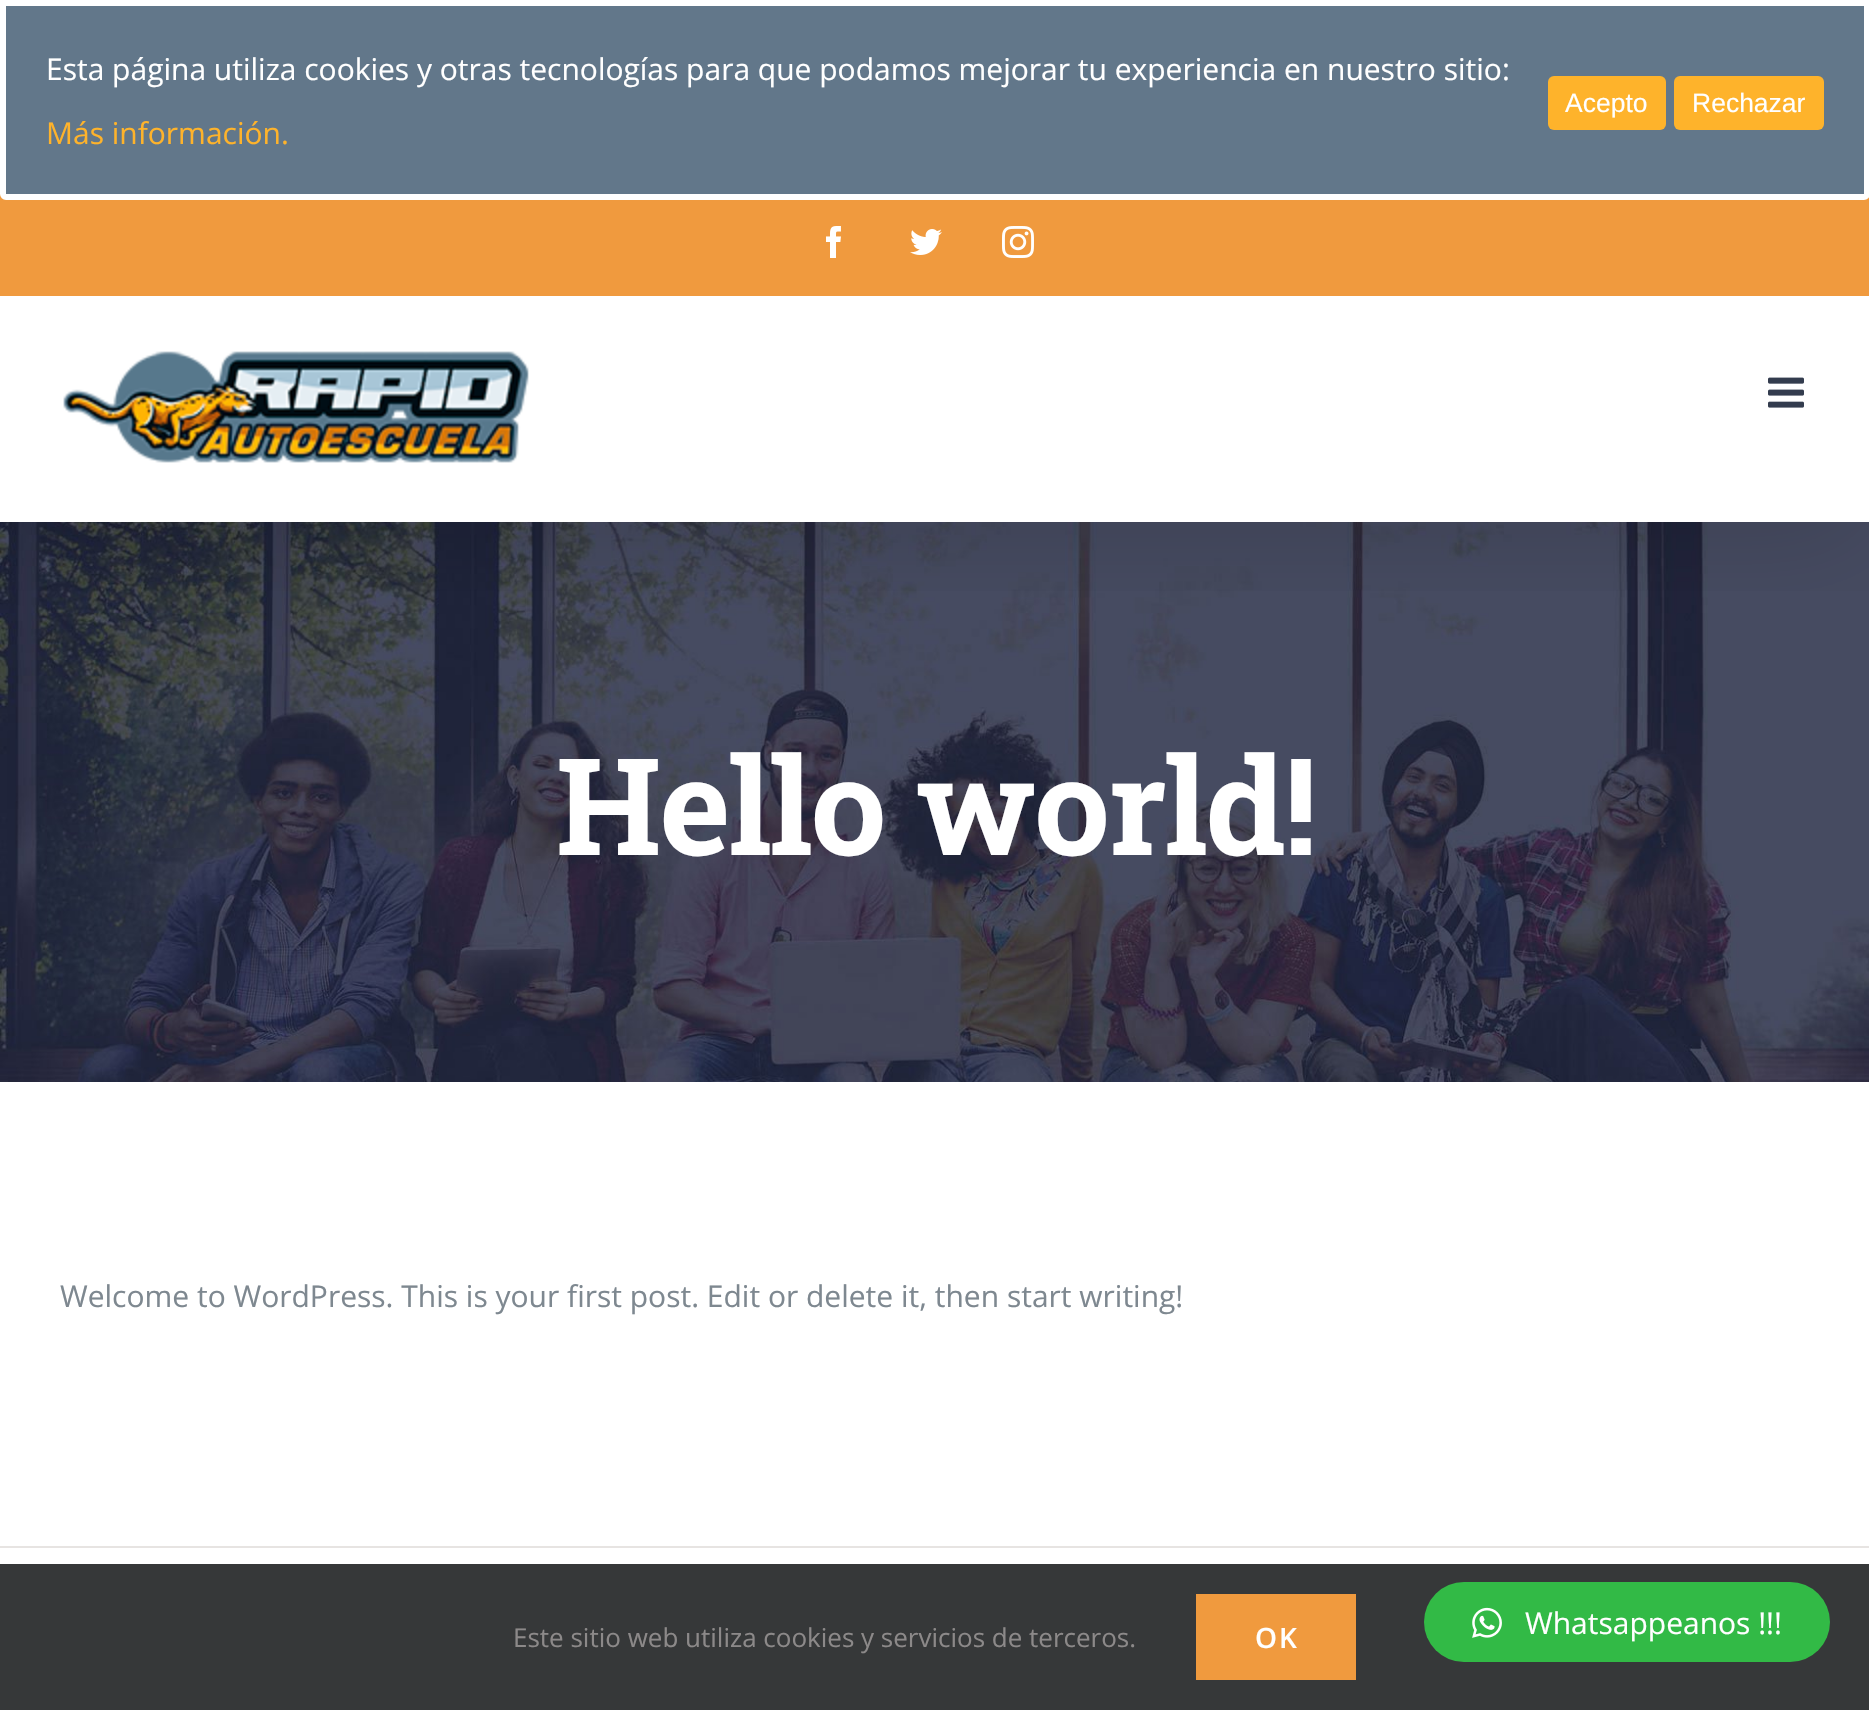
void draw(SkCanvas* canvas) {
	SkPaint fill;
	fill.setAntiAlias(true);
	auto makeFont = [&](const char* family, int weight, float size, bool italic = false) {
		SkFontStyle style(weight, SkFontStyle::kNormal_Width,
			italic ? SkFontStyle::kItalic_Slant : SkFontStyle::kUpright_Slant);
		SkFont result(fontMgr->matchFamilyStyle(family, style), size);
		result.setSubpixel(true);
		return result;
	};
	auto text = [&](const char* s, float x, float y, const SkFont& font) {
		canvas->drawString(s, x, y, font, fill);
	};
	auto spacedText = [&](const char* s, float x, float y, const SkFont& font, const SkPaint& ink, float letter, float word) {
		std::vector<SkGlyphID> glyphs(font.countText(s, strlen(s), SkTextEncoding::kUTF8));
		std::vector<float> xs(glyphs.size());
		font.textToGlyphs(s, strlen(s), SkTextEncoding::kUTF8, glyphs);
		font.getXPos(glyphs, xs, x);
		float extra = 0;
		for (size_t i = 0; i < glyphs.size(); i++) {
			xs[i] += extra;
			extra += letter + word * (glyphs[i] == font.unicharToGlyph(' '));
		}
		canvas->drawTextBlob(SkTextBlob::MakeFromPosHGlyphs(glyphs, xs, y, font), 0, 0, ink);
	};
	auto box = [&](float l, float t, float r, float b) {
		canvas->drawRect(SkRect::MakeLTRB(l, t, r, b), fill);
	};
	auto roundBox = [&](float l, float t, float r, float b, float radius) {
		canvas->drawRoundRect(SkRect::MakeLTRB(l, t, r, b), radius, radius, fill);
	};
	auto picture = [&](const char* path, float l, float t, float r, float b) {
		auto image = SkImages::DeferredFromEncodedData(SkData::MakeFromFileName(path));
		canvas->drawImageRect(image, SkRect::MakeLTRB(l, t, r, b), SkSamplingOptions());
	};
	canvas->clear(0xFFFFFFFF);
	picture("image6.png", 0, 522, 1869, 1082);
	canvas->save();
	canvas->clipRect(SkRect::MakeLTRB(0, 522, 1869, 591));
	fill.setColor(0x24000000);
	fill.setMaskFilter(SkMaskFilter::MakeBlur(kNormal_SkBlurStyle, 50));
	canvas->drawRect(SkRect::MakeLTRB(4, 152, 1866, 538), fill);
	fill.setMaskFilter(nullptr);
	canvas->restore();
	fill.setColor(0xFFF09A3E);
	box(0, 194, 1869, 296);
	fill.setColor(0xFF62778A);
	canvas->drawRoundRect(SkRect::MakeLTRB(3, 3, 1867, 197), 3, 3, fill);
	fill.setStyle(SkPaint::kStroke_Style);
	fill.setStrokeWidth(6);
	fill.setColor(0xFFFFFFFF);
	canvas->drawRoundRect(SkRect::MakeLTRB(3, 3, 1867, 197), 3, 3, fill);
	fill.setStyle(SkPaint::kFill_Style);
	fill.setColor(0xFFFEB32B);
	roundBox(1548, 76, 1666, 130, 6);
	roundBox(1674, 76, 1824, 130, 6);
	fill.setColor(0xFF363839);
	box(0, 1564, 1869, 1710);
	fill.setColor(0xFFF09A3E);
	box(1196, 1594, 1356, 1680);
	fill.setColor(0xFF32BA46);
	roundBox(1424, 1582, 1830, 1662, 40);
	picture("image0.png", 1472, 1607, 1502, 1638);
	picture("image1.png", 826, 226, 841, 258);
	picture("image2.png", 910, 229, 942, 255);
	picture("image3.png", 1002, 226, 1034, 258);
	picture("image4.png", 63, 351, 529, 463);
	picture("image5.png", 1768, 377, 1804, 408);
	fill.setColor(0xFFE7E4E2);
	box(0, 1546, 1869, 1548);
	auto font1 = makeFont("Open Sans", 400, 30);
	fill.setColor(0xFFFFFFFF);
	text("Esta página utiliza cookies y otras tecnologías para que podamos mejorar tu experiencia en nuestro sitio:", 46, 80, font1);
	fill.setColor(0xFFFEB32B);
	text("Más información.", 46, 144, font1);
	auto font2 = makeFont("Liberation Sans", 400, 26.5f);
	fill.setColor(0xFFFFFFFF);
	text("Acepto", 1565, 112, font2);
	text("Rechazar", 1692, 112, font2);
	auto font3 = makeFont("Open Sans", 400, 26);
	fill.setColor(0xFF8C8989);
	text("Este sitio web utiliza cookies y servicios de terceros.", 513, 1647, font3);
	auto font4 = makeFont("Open Sans", 600, 28);
	fill.setColor(0xFFFFFFFF);
	spacedText("OK", 1255, 1648, font4, fill, 2, 0);
	text("Whatsappeanos !!!", 1525, 1634, font1);
	auto font5 = makeFont("Roboto Slab", 700, 135);
	spacedText("Hello world!", 556, 855, font5, fill, -2, 0);
	fill.setColor(0xFF7E8890);
	text("Welcome to WordPress. This is your first post. Edit or delete it, then start writing!", 60, 1307, font1);
}
